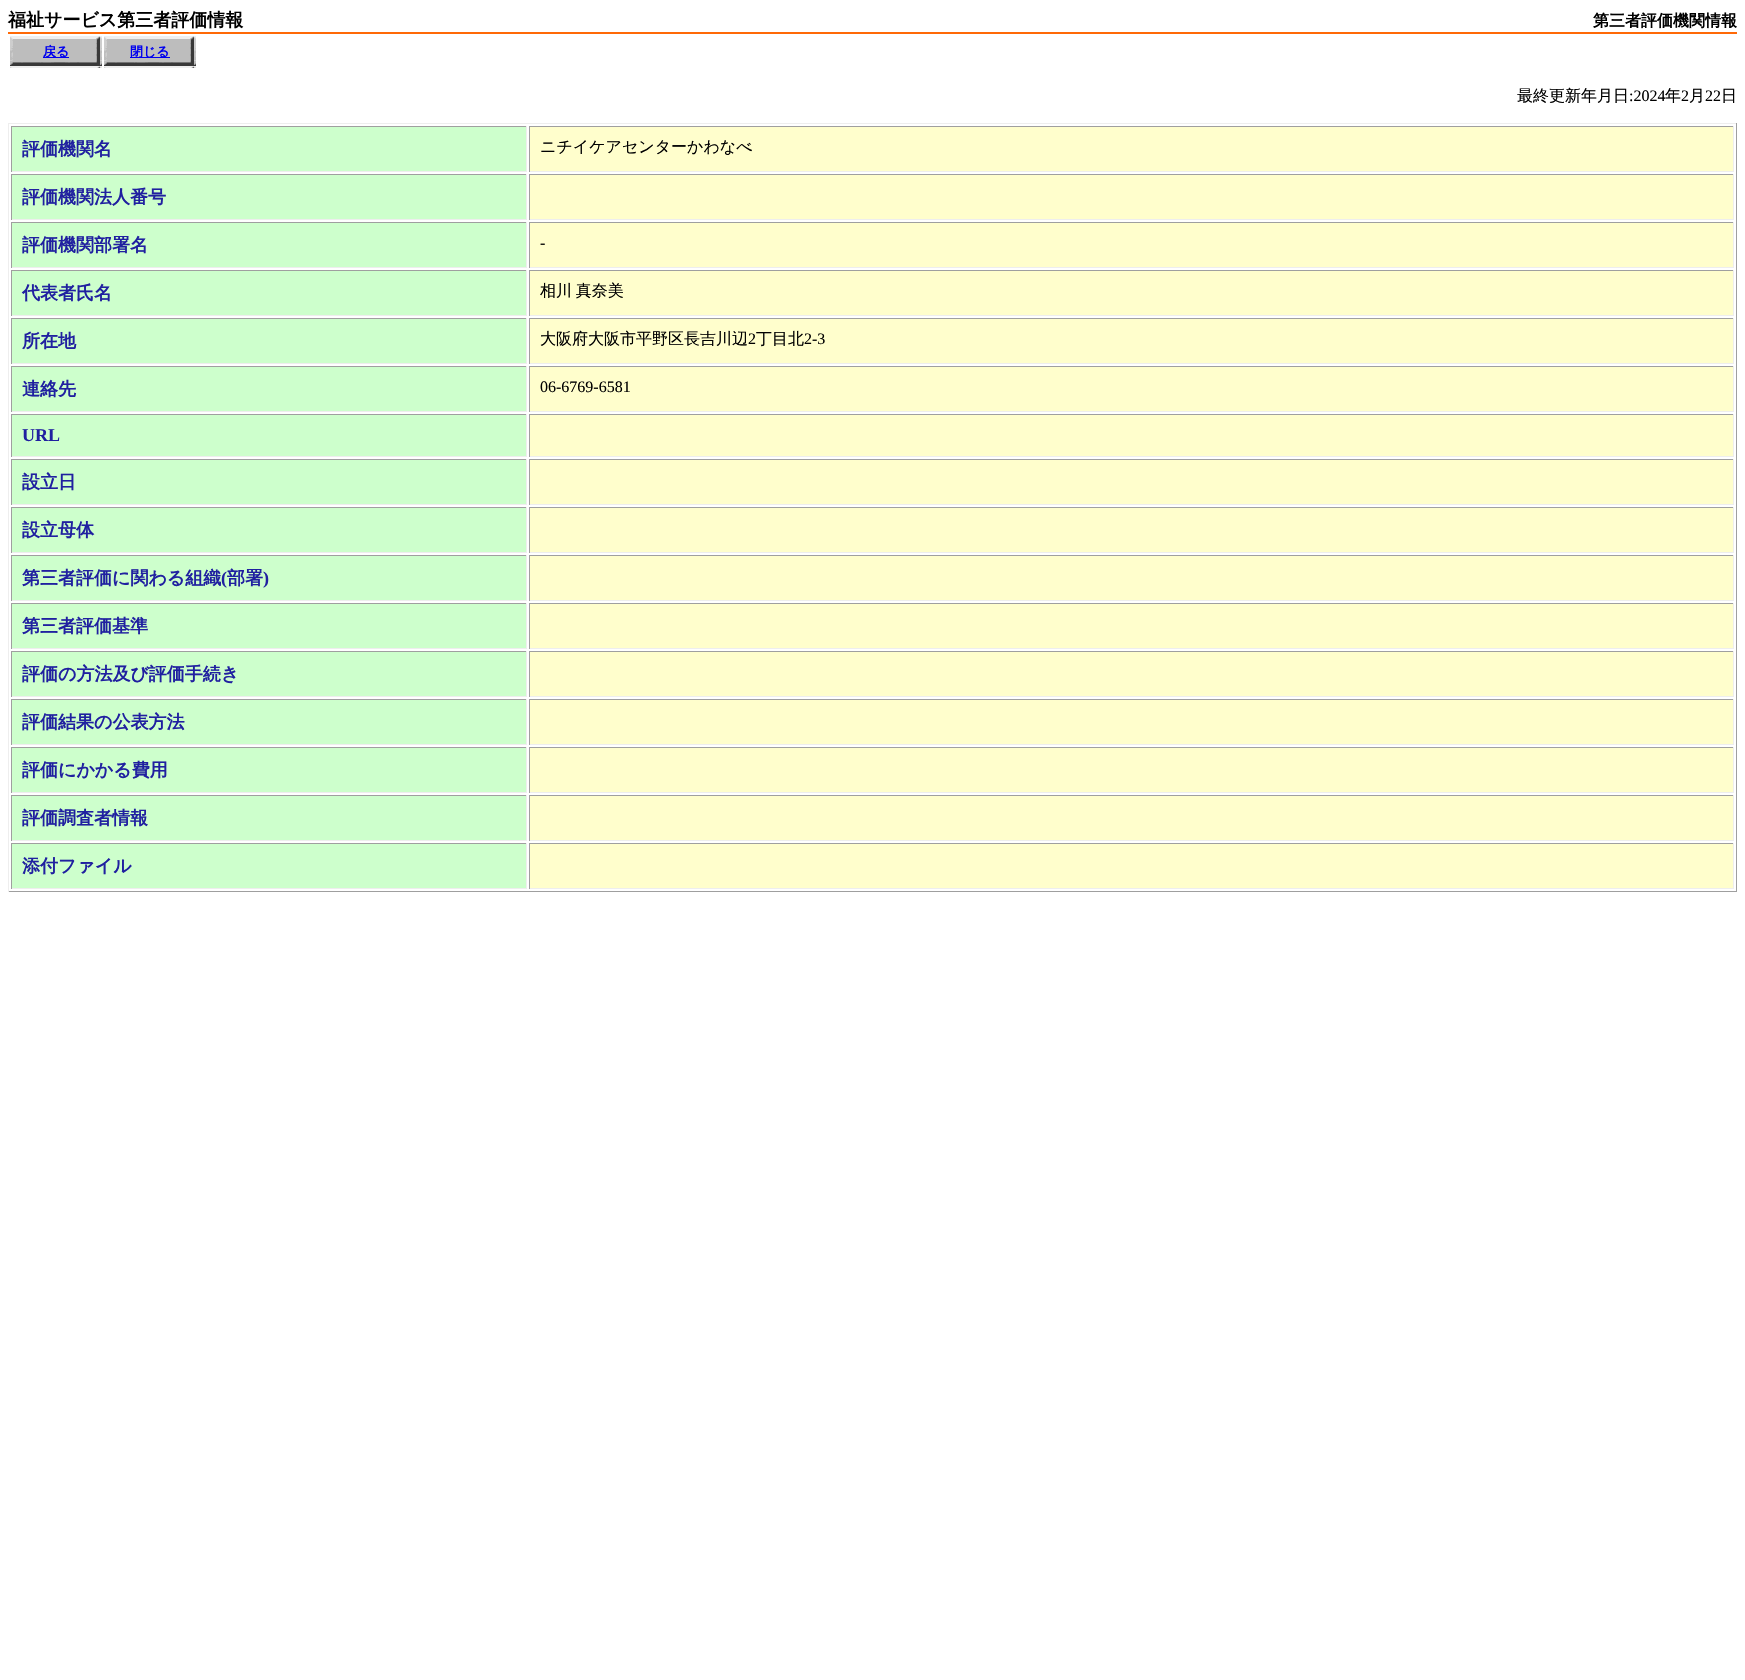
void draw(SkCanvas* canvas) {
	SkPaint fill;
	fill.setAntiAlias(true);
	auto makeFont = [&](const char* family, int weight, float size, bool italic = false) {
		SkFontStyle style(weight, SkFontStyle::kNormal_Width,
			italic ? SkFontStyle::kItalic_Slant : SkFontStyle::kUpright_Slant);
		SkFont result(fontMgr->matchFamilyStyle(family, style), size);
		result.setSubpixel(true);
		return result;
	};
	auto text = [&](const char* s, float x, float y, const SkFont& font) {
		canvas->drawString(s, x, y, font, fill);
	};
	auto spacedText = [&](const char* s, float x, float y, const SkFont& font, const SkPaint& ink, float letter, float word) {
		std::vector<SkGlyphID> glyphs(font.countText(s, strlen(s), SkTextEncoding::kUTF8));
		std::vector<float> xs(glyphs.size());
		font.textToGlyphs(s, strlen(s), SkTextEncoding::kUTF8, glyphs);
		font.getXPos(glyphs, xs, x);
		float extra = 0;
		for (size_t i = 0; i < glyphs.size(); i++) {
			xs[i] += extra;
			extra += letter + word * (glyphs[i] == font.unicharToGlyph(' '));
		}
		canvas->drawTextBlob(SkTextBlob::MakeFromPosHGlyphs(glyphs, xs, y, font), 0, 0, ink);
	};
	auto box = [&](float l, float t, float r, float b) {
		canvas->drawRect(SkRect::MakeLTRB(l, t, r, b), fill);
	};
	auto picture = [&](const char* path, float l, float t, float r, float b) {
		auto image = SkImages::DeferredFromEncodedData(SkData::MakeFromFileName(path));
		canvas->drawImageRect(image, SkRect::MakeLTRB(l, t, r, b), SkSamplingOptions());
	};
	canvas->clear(0xFFFFFFFF);
	fill.setColor(0xFFFF6907);
	box(8, 32, 1737, 34);
	picture("image0.png", 10, 36, 102, 68);
	fill.setColor(0xFF0000EE);
	box(43, 57, 69, 58);
	picture("image0.png", 104, 36, 196, 68);
	box(130, 57, 170, 58);
	fill.setColor(0xFFEEEEEE);
	box(8, 123, 1737, 124);
	fill.setColor(0xFF9F9F9F);
	box(1736, 123, 1737, 892);
	box(8, 891, 1737, 892);
	fill.setColor(0xFFEEEEEE);
	box(8, 123, 9, 892);
	fill.setColor(0xFFCDFFCC);
	box(12, 127, 526, 171);
	fill.setColor(0xFF9F9F9F);
	box(11, 126, 527, 127);
	fill.setColor(0xFFEEEEEE);
	box(526, 126, 527, 172);
	box(11, 171, 527, 172);
	fill.setColor(0xFF9F9F9F);
	box(11, 126, 12, 172);
	fill.setColor(0xFFFFFECC);
	box(530, 127, 1733, 171);
	fill.setColor(0xFF9F9F9F);
	box(529, 126, 1734, 127);
	fill.setColor(0xFFEEEEEE);
	box(1733, 126, 1734, 172);
	box(529, 171, 1734, 172);
	fill.setColor(0xFF9F9F9F);
	box(529, 126, 530, 172);
	fill.setColor(0xFFCDFFCC);
	box(12, 175, 526, 219);
	fill.setColor(0xFF9F9F9F);
	box(11, 174, 527, 175);
	fill.setColor(0xFFEEEEEE);
	box(526, 174, 527, 220);
	box(11, 219, 527, 220);
	fill.setColor(0xFF9F9F9F);
	box(11, 174, 12, 220);
	fill.setColor(0xFFFFFECC);
	box(530, 175, 1733, 219);
	fill.setColor(0xFF9F9F9F);
	box(529, 174, 1734, 175);
	fill.setColor(0xFFEEEEEE);
	box(1733, 174, 1734, 220);
	box(529, 219, 1734, 220);
	fill.setColor(0xFF9F9F9F);
	box(529, 174, 530, 220);
	fill.setColor(0xFFCDFFCC);
	box(12, 223, 526, 267);
	fill.setColor(0xFF9F9F9F);
	box(11, 222, 527, 223);
	fill.setColor(0xFFEEEEEE);
	box(526, 222, 527, 268);
	box(11, 267, 527, 268);
	fill.setColor(0xFF9F9F9F);
	box(11, 222, 12, 268);
	fill.setColor(0xFFFFFECC);
	box(530, 223, 1733, 267);
	fill.setColor(0xFF9F9F9F);
	box(529, 222, 1734, 223);
	fill.setColor(0xFFEEEEEE);
	box(1733, 222, 1734, 268);
	box(529, 267, 1734, 268);
	fill.setColor(0xFF9F9F9F);
	box(529, 222, 530, 268);
	fill.setColor(0xFFCDFFCC);
	box(12, 271, 526, 315);
	fill.setColor(0xFF9F9F9F);
	box(11, 270, 527, 271);
	fill.setColor(0xFFEEEEEE);
	box(526, 270, 527, 316);
	box(11, 315, 527, 316);
	fill.setColor(0xFF9F9F9F);
	box(11, 270, 12, 316);
	fill.setColor(0xFFFFFECC);
	box(530, 271, 1733, 315);
	fill.setColor(0xFF9F9F9F);
	box(529, 270, 1734, 271);
	fill.setColor(0xFFEEEEEE);
	box(1733, 270, 1734, 316);
	box(529, 315, 1734, 316);
	fill.setColor(0xFF9F9F9F);
	box(529, 270, 530, 316);
	fill.setColor(0xFFCDFFCC);
	box(12, 319, 526, 363);
	fill.setColor(0xFF9F9F9F);
	box(11, 318, 527, 319);
	fill.setColor(0xFFEEEEEE);
	box(526, 318, 527, 364);
	box(11, 363, 527, 364);
	fill.setColor(0xFF9F9F9F);
	box(11, 318, 12, 364);
	fill.setColor(0xFFFFFECC);
	box(530, 319, 1733, 363);
	fill.setColor(0xFF9F9F9F);
	box(529, 318, 1734, 319);
	fill.setColor(0xFFEEEEEE);
	box(1733, 318, 1734, 364);
	box(529, 363, 1734, 364);
	fill.setColor(0xFF9F9F9F);
	box(529, 318, 530, 364);
	fill.setColor(0xFFCDFFCC);
	box(12, 367, 526, 411);
	fill.setColor(0xFF9F9F9F);
	box(11, 366, 527, 367);
	fill.setColor(0xFFEEEEEE);
	box(526, 366, 527, 412);
	box(11, 411, 527, 412);
	fill.setColor(0xFF9F9F9F);
	box(11, 366, 12, 412);
	fill.setColor(0xFFFFFECC);
	box(530, 367, 1733, 411);
	fill.setColor(0xFF9F9F9F);
	box(529, 366, 1734, 367);
	fill.setColor(0xFFEEEEEE);
	box(1733, 366, 1734, 412);
	box(529, 411, 1734, 412);
	fill.setColor(0xFF9F9F9F);
	box(529, 366, 530, 412);
	fill.setColor(0xFFCDFFCC);
	box(12, 415, 526, 456);
	fill.setColor(0xFF9F9F9F);
	box(11, 414, 527, 415);
	fill.setColor(0xFFEEEEEE);
	box(526, 414, 527, 457);
	box(11, 456, 527, 457);
	fill.setColor(0xFF9F9F9F);
	box(11, 414, 12, 457);
	fill.setColor(0xFFFFFECC);
	box(530, 415, 1733, 456);
	fill.setColor(0xFF9F9F9F);
	box(529, 414, 1734, 415);
	fill.setColor(0xFFEEEEEE);
	box(1733, 414, 1734, 457);
	box(529, 456, 1734, 457);
	fill.setColor(0xFF9F9F9F);
	box(529, 414, 530, 457);
	fill.setColor(0xFFCDFFCC);
	box(12, 460, 526, 504);
	fill.setColor(0xFF9F9F9F);
	box(11, 459, 527, 460);
	fill.setColor(0xFFEEEEEE);
	box(526, 459, 527, 505);
	box(11, 504, 527, 505);
	fill.setColor(0xFF9F9F9F);
	box(11, 459, 12, 505);
	fill.setColor(0xFFFFFECC);
	box(530, 460, 1733, 504);
	fill.setColor(0xFF9F9F9F);
	box(529, 459, 1734, 460);
	fill.setColor(0xFFEEEEEE);
	box(1733, 459, 1734, 505);
	box(529, 504, 1734, 505);
	fill.setColor(0xFF9F9F9F);
	box(529, 459, 530, 505);
	fill.setColor(0xFFCDFFCC);
	box(12, 508, 526, 552);
	fill.setColor(0xFF9F9F9F);
	box(11, 507, 527, 508);
	fill.setColor(0xFFEEEEEE);
	box(526, 507, 527, 553);
	box(11, 552, 527, 553);
	fill.setColor(0xFF9F9F9F);
	box(11, 507, 12, 553);
	fill.setColor(0xFFFFFECC);
	box(530, 508, 1733, 552);
	fill.setColor(0xFF9F9F9F);
	box(529, 507, 1734, 508);
	fill.setColor(0xFFEEEEEE);
	box(1733, 507, 1734, 553);
	box(529, 552, 1734, 553);
	fill.setColor(0xFF9F9F9F);
	box(529, 507, 530, 553);
	fill.setColor(0xFFCDFFCC);
	box(12, 556, 526, 600);
	fill.setColor(0xFF9F9F9F);
	box(11, 555, 527, 556);
	fill.setColor(0xFFEEEEEE);
	box(526, 555, 527, 601);
	box(11, 600, 527, 601);
	fill.setColor(0xFF9F9F9F);
	box(11, 555, 12, 601);
	fill.setColor(0xFFFFFECC);
	box(530, 556, 1733, 600);
	fill.setColor(0xFF9F9F9F);
	box(529, 555, 1734, 556);
	fill.setColor(0xFFEEEEEE);
	box(1733, 555, 1734, 601);
	box(529, 600, 1734, 601);
	fill.setColor(0xFF9F9F9F);
	box(529, 555, 530, 601);
	fill.setColor(0xFFCDFFCC);
	box(12, 604, 526, 648);
	fill.setColor(0xFF9F9F9F);
	box(11, 603, 527, 604);
	fill.setColor(0xFFEEEEEE);
	box(526, 603, 527, 649);
	box(11, 648, 527, 649);
	fill.setColor(0xFF9F9F9F);
	box(11, 603, 12, 649);
	fill.setColor(0xFFFFFECC);
	box(530, 604, 1733, 648);
	fill.setColor(0xFF9F9F9F);
	box(529, 603, 1734, 604);
	fill.setColor(0xFFEEEEEE);
	box(1733, 603, 1734, 649);
	box(529, 648, 1734, 649);
	fill.setColor(0xFF9F9F9F);
	box(529, 603, 530, 649);
	fill.setColor(0xFFCDFFCC);
	box(12, 652, 526, 696);
	fill.setColor(0xFF9F9F9F);
	box(11, 651, 527, 652);
	fill.setColor(0xFFEEEEEE);
	box(526, 651, 527, 697);
	box(11, 696, 527, 697);
	fill.setColor(0xFF9F9F9F);
	box(11, 651, 12, 697);
	fill.setColor(0xFFFFFECC);
	box(530, 652, 1733, 696);
	fill.setColor(0xFF9F9F9F);
	box(529, 651, 1734, 652);
	fill.setColor(0xFFEEEEEE);
	box(1733, 651, 1734, 697);
	box(529, 696, 1734, 697);
	fill.setColor(0xFF9F9F9F);
	box(529, 651, 530, 697);
	fill.setColor(0xFFCDFFCC);
	box(12, 700, 526, 744);
	fill.setColor(0xFF9F9F9F);
	box(11, 699, 527, 700);
	fill.setColor(0xFFEEEEEE);
	box(526, 699, 527, 745);
	box(11, 744, 527, 745);
	fill.setColor(0xFF9F9F9F);
	box(11, 699, 12, 745);
	fill.setColor(0xFFFFFECC);
	box(530, 700, 1733, 744);
	fill.setColor(0xFF9F9F9F);
	box(529, 699, 1734, 700);
	fill.setColor(0xFFEEEEEE);
	box(1733, 699, 1734, 745);
	box(529, 744, 1734, 745);
	fill.setColor(0xFF9F9F9F);
	box(529, 699, 530, 745);
	fill.setColor(0xFFCDFFCC);
	box(12, 748, 526, 792);
	fill.setColor(0xFF9F9F9F);
	box(11, 747, 527, 748);
	fill.setColor(0xFFEEEEEE);
	box(526, 747, 527, 793);
	box(11, 792, 527, 793);
	fill.setColor(0xFF9F9F9F);
	box(11, 747, 12, 793);
	fill.setColor(0xFFFFFECC);
	box(530, 748, 1733, 792);
	fill.setColor(0xFF9F9F9F);
	box(529, 747, 1734, 748);
	fill.setColor(0xFFEEEEEE);
	box(1733, 747, 1734, 793);
	box(529, 792, 1734, 793);
	fill.setColor(0xFF9F9F9F);
	box(529, 747, 530, 793);
	fill.setColor(0xFFCDFFCC);
	box(12, 796, 526, 840);
	fill.setColor(0xFF9F9F9F);
	box(11, 795, 527, 796);
	fill.setColor(0xFFEEEEEE);
	box(526, 795, 527, 841);
	box(11, 840, 527, 841);
	fill.setColor(0xFF9F9F9F);
	box(11, 795, 12, 841);
	fill.setColor(0xFFFFFECC);
	box(530, 796, 1733, 840);
	fill.setColor(0xFF9F9F9F);
	box(529, 795, 1734, 796);
	fill.setColor(0xFFEEEEEE);
	box(1733, 795, 1734, 841);
	box(529, 840, 1734, 841);
	fill.setColor(0xFF9F9F9F);
	box(529, 795, 530, 841);
	fill.setColor(0xFFCDFFCC);
	box(12, 844, 526, 888);
	fill.setColor(0xFF9F9F9F);
	box(11, 843, 527, 844);
	fill.setColor(0xFFEEEEEE);
	box(526, 843, 527, 889);
	box(11, 888, 527, 889);
	fill.setColor(0xFF9F9F9F);
	box(11, 843, 12, 889);
	fill.setColor(0xFFFFFECC);
	box(530, 844, 1733, 888);
	fill.setColor(0xFF9F9F9F);
	box(529, 843, 1734, 844);
	fill.setColor(0xFFEEEEEE);
	box(1733, 843, 1734, 889);
	box(529, 888, 1734, 889);
	fill.setColor(0xFF9F9F9F);
	box(529, 843, 530, 889);
	auto font1 = makeFont("WenQuanYi Zen Hei", 700, 18);
	fill.setColor(0xFF000000);
	text("福祉サービス第三者評価情報", 8, 26, font1);
	auto font2 = makeFont("WenQuanYi Zen Hei", 700, 16);
	text("第三者評価機関情報", 1593, 26, font2);
	auto font3 = makeFont("WenQuanYi Zen Hei", 700, 13);
	fill.setColor(0xFF0000EE);
	text("戻る", 43, 56, font3);
	text("閉じる", 130, 56, font3);
	auto font4 = makeFont("WenQuanYi Zen Hei", 500, 16);
	fill.setColor(0xFF000000);
	text("最終更新年月日", 1517, 101, font4);
	auto font5 = makeFont("Liberation Serif", 400, 16);
	text(":2024", 1629, 101, font5);
	text("年", 1665, 101, font4);
	text("2", 1681, 101, font5);
	text("月", 1689, 101, font4);
	text("22", 1705, 101, font5);
	text("日", 1721, 101, font4);
	fill.setColor(0xFF2020A0);
	text("評価機関名", 22, 155, font1);
	fill.setColor(0xFF000000);
	text("ニチイケアセンターかわなべ", 540, 152, font4);
	fill.setColor(0xFF2020A0);
	text("評価機関法人番号", 22, 203, font1);
	text("評価機関部署名", 22, 251, font1);
	fill.setColor(0xFF000000);
	text("-", 540, 248, font5);
	fill.setColor(0xFF2020A0);
	text("代表者氏名", 22, 299, font1);
	fill.setColor(0xFF000000);
	spacedText("相川 真奈美", 540, 296, font4, fill, 0, -1);
	fill.setColor(0xFF2020A0);
	text("所在地", 22, 347, font1);
	fill.setColor(0xFF000000);
	text("大阪府大阪市平野区長吉川辺", 540, 344, font4);
	text("2", 748, 344, font5);
	text("丁目北", 756, 344, font4);
	text("2-3", 804, 344, font5);
	fill.setColor(0xFF2020A0);
	text("連絡先", 22, 395, font1);
	fill.setColor(0xFF000000);
	text("06-6769-6581", 540, 392, font5);
	auto font6 = makeFont("Liberation Serif", 700, 18);
	fill.setColor(0xFF2020A0);
	text("URL", 22, 441, font6);
	text("設立日", 22, 488, font1);
	text("設立母体", 22, 536, font1);
	text("第三者評価に関わる組織", 22, 584, font1);
	text("(", 221, 584, font6);
	text("部署", 227, 584, font1);
	text(")", 263, 584, font6);
	text("第三者評価基準", 22, 632, font1);
	text("評価の方法及び評価手続き", 22, 680, font1);
	text("評価結果の公表方法", 22, 728, font1);
	text("評価にかかる費用", 22, 776, font1);
	text("評価調査者情報", 22, 824, font1);
	text("添付ファイル", 22, 872, font1);
}
